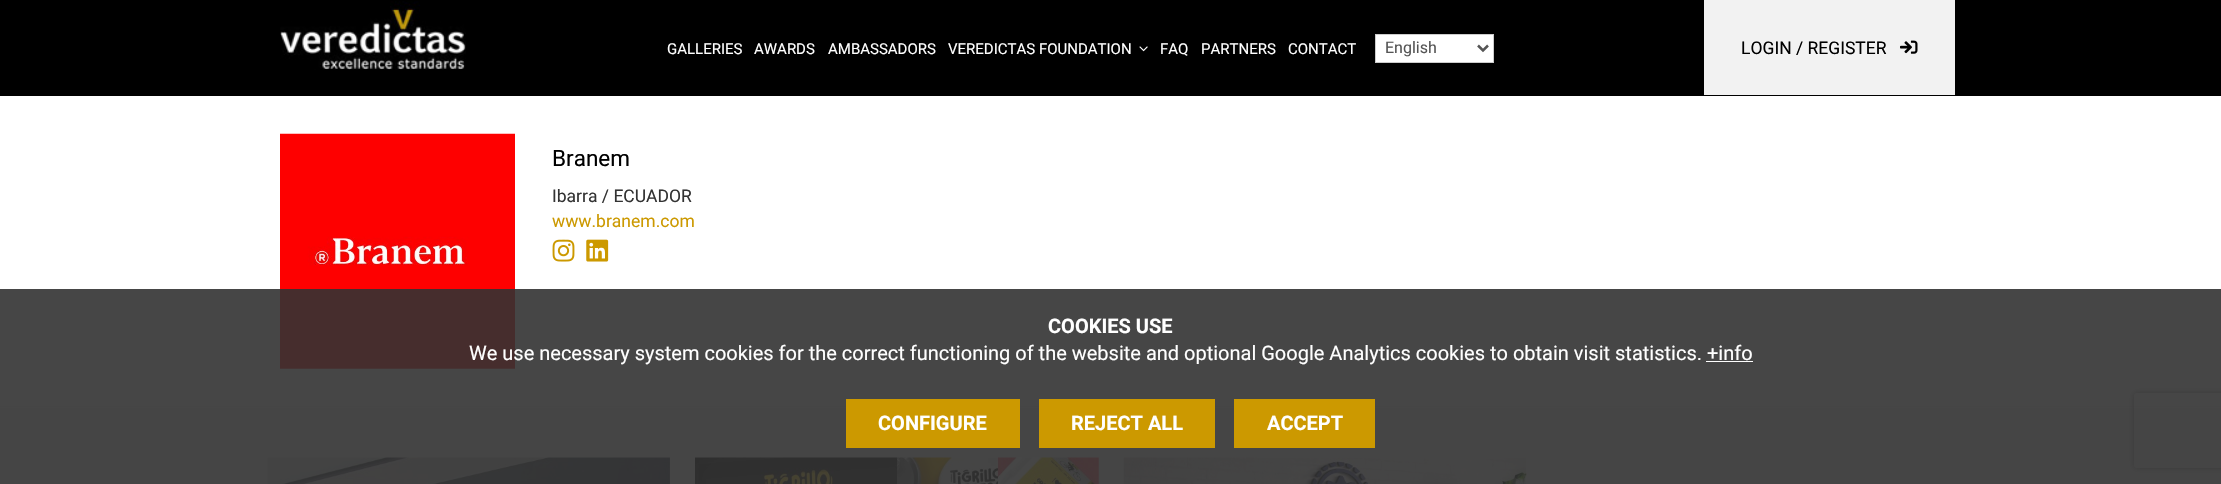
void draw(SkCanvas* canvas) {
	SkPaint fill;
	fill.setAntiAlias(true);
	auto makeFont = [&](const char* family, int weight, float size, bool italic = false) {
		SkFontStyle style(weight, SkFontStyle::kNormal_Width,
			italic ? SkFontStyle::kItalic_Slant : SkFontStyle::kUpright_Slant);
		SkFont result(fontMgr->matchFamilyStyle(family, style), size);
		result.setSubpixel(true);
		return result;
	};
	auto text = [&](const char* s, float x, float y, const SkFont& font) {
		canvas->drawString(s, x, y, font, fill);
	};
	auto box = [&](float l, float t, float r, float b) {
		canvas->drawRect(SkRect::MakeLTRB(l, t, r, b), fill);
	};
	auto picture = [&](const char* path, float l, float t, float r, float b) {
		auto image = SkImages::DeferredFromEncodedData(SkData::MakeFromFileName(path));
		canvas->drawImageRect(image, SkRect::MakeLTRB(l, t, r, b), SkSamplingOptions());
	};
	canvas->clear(0xFFFFFFFF);
	fill.setColor(0xFF000000);
	box(0, 0, 2221, 96);
	picture("image0.png", 280, 1, 466, 70);
	picture("image1.png", 1139, 46, 1148, 52);
	fill.setColor(0xFFFFFFFF);
	canvas->drawRect(SkRect::MakeLTRB(1375.5f, 34.5f, 1493.5f, 62.5f), fill);
	fill.setStyle(SkPaint::kStroke_Style);
	fill.setStrokeWidth(1);
	fill.setColor(0xFFCCCCCC);
	canvas->drawRect(SkRect::MakeLTRB(1375.5f, 34.5f, 1493.5f, 62.5f), fill);
	fill.setStrokeWidth(2.5f);
	fill.setColor(0xFF555555);
	canvas->drawPath(SkPathBuilder().moveTo(1478, 45.5f).lineTo(1483, 50.5f).lineTo(1488, 45.5f).detach(), fill);
	fill.setStyle(SkPaint::kFill_Style);
	fill.setColor(0xFFF2F2F2);
	box(1704, 0, 1955, 95);
	picture("image2.png", 1900, 40, 1918, 54);
	picture("image3.png", 280, 133, 515, 369);
	picture("image4.png", 552, 239, 575, 262);
	picture("image5.png", 586, 239, 609, 262);
	fill.setColor(0xFFF2F1F2);
	box(0, 406, 2221, 407);
	fill.setColor(0xFFF5F5F5);
	box(0, 408, 2221, 484);
	canvas->save();
	canvas->clipPath(SkPathBuilder(SkPathFillType::kEvenOdd).moveTo(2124, 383).lineTo(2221, 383).lineTo(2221, 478).lineTo(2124, 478).close().moveTo(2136.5f, 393).lineTo(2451.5f, 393).cubicTo(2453, 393, 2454, 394, 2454, 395.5f).lineTo(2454, 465.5f).cubicTo(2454, 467, 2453, 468, 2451.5f, 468).lineTo(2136.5f, 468).cubicTo(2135, 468, 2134, 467, 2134, 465.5f).lineTo(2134, 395.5f).cubicTo(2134, 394, 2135, 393, 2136.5f, 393).close().detach(), true);
	fill.setColor(0xFF808080);
	fill.setMaskFilter(SkMaskFilter::MakeBlur(kNormal_SkBlurStyle, 3));
	canvas->drawRoundRect(SkRect::MakeLTRB(2134, 393, 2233, 468), 2.5f, 2.5f, fill);
	fill.setMaskFilter(nullptr);
	canvas->restore();
	picture("image6.png", 267, 457, 670, 484);
	picture("image7.png", 695, 457, 1099, 484);
	picture("image8.png", 1123, 457, 1527, 484);
	fill.setColor(0xE6323232);
	box(0, 289, 2221, 484);
	fill.setColor(0xFFFFFFFF);
	box(1706, 361, 1753, 362);
	fill.setColor(0xFFCC9900);
	box(846, 399, 1020, 448);
	box(1039, 399, 1215, 448);
	box(1234, 399, 1375, 448);
	auto font1 = makeFont("Roboto", 400, 15);
	fill.setColor(0xFFFFFFFF);
	text("GALLERIES", 667, 54, font1);
	text("AWARDS", 754, 54, font1);
	text("AMBASSADORS", 828, 54, font1);
	text("VEREDICTAS FOUNDATION", 948, 54, font1);
	text("FAQ", 1160, 54, font1);
	text("PARTNERS", 1201, 54, font1);
	text("CONTACT", 1288, 54, font1);
	auto font2 = makeFont("Roboto", 400, 16);
	fill.setColor(0xFF555555);
	text("English", 1385, 53, font2);
	auto font3 = makeFont("Roboto", 400, 17.5f);
	fill.setColor(0xFF000000);
	text("LOGIN / REGISTER", 1741, 54, font3);
	auto font4 = makeFont("Roboto", 400, 22.5f);
	text("Branem", 552, 166, font4);
	fill.setColor(0xFF333333);
	text("Ibarra / ECUADOR", 552, 202, font3);
	fill.setColor(0xFFCC9900);
	text("www.branem.com", 552, 227, font3);
	auto font5 = makeFont("Roboto", 700, 20);
	fill.setColor(0xFFFFFFFF);
	text("COOKIES USE", 1048, 333, font5);
	auto font6 = makeFont("Roboto", 400, 20);
	text("We use necessary system cookies for the correct functioning of the website and optional Google Analytics cookies to obtain visit statistics. +info", 469, 360, font6);
	text("CONFIGURE", 878, 430, font5);
	text("REJECT ALL", 1071, 430, font5);
	text("ACCEPT", 1267, 430, font5);
}
